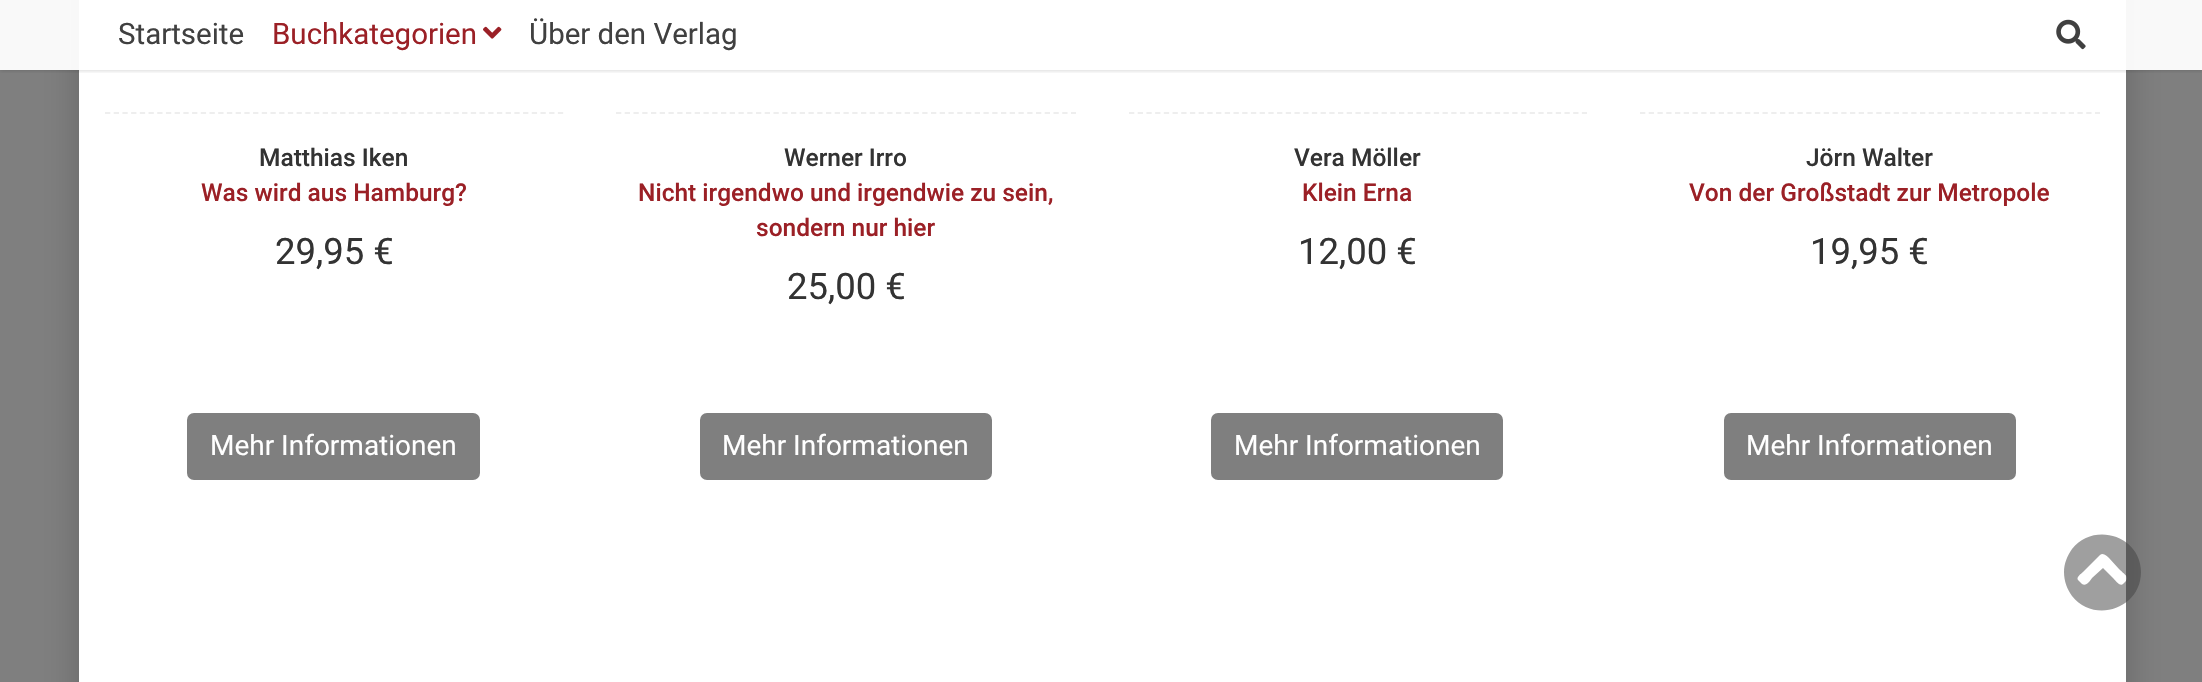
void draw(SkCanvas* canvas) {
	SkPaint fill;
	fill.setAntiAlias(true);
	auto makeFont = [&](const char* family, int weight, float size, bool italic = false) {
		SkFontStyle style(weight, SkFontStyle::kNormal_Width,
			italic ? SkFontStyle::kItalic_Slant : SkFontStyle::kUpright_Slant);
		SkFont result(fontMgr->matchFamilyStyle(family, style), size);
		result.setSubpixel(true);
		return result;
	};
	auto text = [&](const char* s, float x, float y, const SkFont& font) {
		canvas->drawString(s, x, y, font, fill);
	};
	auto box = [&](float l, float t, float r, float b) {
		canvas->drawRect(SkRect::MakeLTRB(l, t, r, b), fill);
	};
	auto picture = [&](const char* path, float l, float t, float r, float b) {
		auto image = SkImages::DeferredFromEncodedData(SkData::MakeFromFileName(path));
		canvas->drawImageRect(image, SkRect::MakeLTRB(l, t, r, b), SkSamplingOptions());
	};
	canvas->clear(0xFF7F7F7F);
	fill.setColor(0x33000000);
	fill.setMaskFilter(SkMaskFilter::MakeBlur(kNormal_SkBlurStyle, 17.5f));
	canvas->drawRect(SkRect::MakeLTRB(79, -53, 2126, 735), fill);
	fill.setMaskFilter(nullptr);
	fill.setColor(0xFFFFFFFF);
	box(79, 0, 2126, 682);
	canvas->save();
	canvas->clipRect(SkRect::MakeLTRB(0, 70, 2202, 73));
	fill.setColor(0x33000000);
	fill.setMaskFilter(SkMaskFilter::MakeBlur(kNormal_SkBlurStyle, 2.5f));
	canvas->drawRect(SkRect::MakeLTRB(0, 0, 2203, 70), fill);
	fill.setMaskFilter(nullptr);
	canvas->restore();
	fill.setColor(0xF2FFFFFF);
	box(0, 0, 2202, 70);
	picture("image0.png", 483, 26, 502, 39);
	picture("image1.png", 2056, 19, 2086, 50);
	fill.setStyle(SkPaint::kStroke_Style);
	fill.setStrokeWidth(1.8f);
	fill.setColor(0xFFEEEEEE);
	fill.setPathEffect(SkDashPathEffect::Make({{5.25f, 3.46f}}, 0));
	canvas->drawPath(SkPathBuilder().moveTo(105, 113).lineTo(563.5f, 113).detach(), fill);
	fill.setPathEffect(nullptr);
	fill.setStyle(SkPaint::kFill_Style);
	fill.setColor(0xFF7F7F7F);
	canvas->drawRoundRect(SkRect::MakeLTRB(188, 414, 479, 479), 6, 6, fill);
	fill.setStyle(SkPaint::kStroke_Style);
	fill.setStrokeWidth(2);
	canvas->drawRoundRect(SkRect::MakeLTRB(188, 414, 479, 479), 6, 6, fill);
	fill.setStrokeWidth(1.8f);
	fill.setColor(0xFFEEEEEE);
	fill.setPathEffect(SkDashPathEffect::Make({{5.25f, 3.5f}}, 0));
	canvas->drawPath(SkPathBuilder().moveTo(616, 113).lineTo(1076, 113).detach(), fill);
	fill.setPathEffect(nullptr);
	fill.setStyle(SkPaint::kFill_Style);
	fill.setColor(0xFF7F7F7F);
	canvas->drawRoundRect(SkRect::MakeLTRB(701, 414, 991, 479), 6, 6, fill);
	fill.setStyle(SkPaint::kStroke_Style);
	fill.setStrokeWidth(2);
	canvas->drawRoundRect(SkRect::MakeLTRB(701, 414, 991, 479), 6, 6, fill);
	fill.setStrokeWidth(1.8f);
	fill.setColor(0xFFEEEEEE);
	fill.setPathEffect(SkDashPathEffect::Make({{5.25f, 3.46f}}, 0));
	canvas->drawPath(SkPathBuilder().moveTo(1129, 113).lineTo(1587, 113).detach(), fill);
	fill.setPathEffect(nullptr);
	fill.setStyle(SkPaint::kFill_Style);
	fill.setColor(0xFF7F7F7F);
	canvas->drawRoundRect(SkRect::MakeLTRB(1212, 414, 1502, 479), 6, 6, fill);
	fill.setStyle(SkPaint::kStroke_Style);
	fill.setStrokeWidth(2);
	canvas->drawRoundRect(SkRect::MakeLTRB(1212, 414, 1502, 479), 6, 6, fill);
	fill.setStrokeWidth(1.8f);
	fill.setColor(0xFFEEEEEE);
	fill.setPathEffect(SkDashPathEffect::Make({{5.25f, 3.5f}}, 0));
	canvas->drawPath(SkPathBuilder().moveTo(1640, 113).lineTo(2100, 113).detach(), fill);
	fill.setPathEffect(nullptr);
	fill.setStyle(SkPaint::kFill_Style);
	fill.setColor(0xFF7F7F7F);
	canvas->drawRoundRect(SkRect::MakeLTRB(1725, 414, 2015, 479), 6, 6, fill);
	fill.setStyle(SkPaint::kStroke_Style);
	fill.setStrokeWidth(2);
	canvas->drawRoundRect(SkRect::MakeLTRB(1725, 414, 2015, 479), 6, 6, fill);
	fill.setStyle(SkPaint::kFill_Style);
	fill.setColor(0x80404040);
	canvas->drawPath(SkPathBuilder().moveTo(2064, 572).cubicTo(2064, 564, 2067, 556, 2072, 549).cubicTo(2094, 521, 2141, 536, 2141, 572).cubicTo(2141, 609, 2094, 624, 2072, 596).cubicTo(2067, 589, 2064, 581, 2064, 572).close().moveTo(2100, 555).lineTo(2083, 572).cubicTo(2081, 574, 2076, 577, 2078, 580).lineTo(2082, 584).cubicTo(2086, 587, 2090, 581, 2092, 578).lineTo(2103, 568).lineTo(2113, 578).cubicTo(2115, 580, 2120, 587, 2123, 584).cubicTo(2131, 577, 2126, 576, 2119, 569).lineTo(2109, 558).cubicTo(2107, 556, 2103, 552, 2100, 555).close().detach(), fill);
	auto font1 = makeFont("Roboto", 400, 29.5f);
	fill.setColor(0xFF404040);
	text("Startseite", 118, 44, font1);
	fill.setColor(0xFF9B2026);
	text("Buchkategorien", 272, 44, font1);
	fill.setColor(0xFF404040);
	text("Über den Verlag", 529, 44, font1);
	auto font2 = makeFont("Roboto", 500, 24.5f);
	fill.setColor(0xFF333333);
	text("Matthias Iken", 259, 166, font2);
	fill.setColor(0xFF9B2026);
	text("Was wird aus Hamburg?", 201, 201, font2);
	auto font3 = makeFont("Roboto", 400, 36.5f);
	fill.setColor(0xFF333333);
	text("29,95 €", 275, 264, font3);
	auto font4 = makeFont("Roboto", 400, 28);
	fill.setColor(0xFFFFFFFF);
	text("Mehr Informationen", 210, 455, font4);
	fill.setColor(0xFF333333);
	text("Werner Irro", 784, 166, font2);
	fill.setColor(0xFF9B2026);
	text("Nicht irgendwo und irgendwie zu sein,", 638, 201, font2);
	text("sondern nur hier", 756, 236, font2);
	fill.setColor(0xFF333333);
	text("25,00 €", 787, 299, font3);
	fill.setColor(0xFFFFFFFF);
	text("Mehr Informationen", 722, 455, font4);
	fill.setColor(0xFF333333);
	text("Vera Möller", 1294, 166, font2);
	fill.setColor(0xFF9B2026);
	text("Klein Erna", 1302, 201, font2);
	fill.setColor(0xFF333333);
	text("12,00 €", 1298, 264, font3);
	fill.setColor(0xFFFFFFFF);
	text("Mehr Informationen", 1234, 455, font4);
	fill.setColor(0xFF333333);
	text("Jörn Walter", 1806, 166, font2);
	fill.setColor(0xFF9B2026);
	text("Von der Großstadt zur Metropole", 1689, 201, font2);
	fill.setColor(0xFF333333);
	text("19,95 €", 1810, 264, font3);
	fill.setColor(0xFFFFFFFF);
	text("Mehr Informationen", 1746, 455, font4);
}
